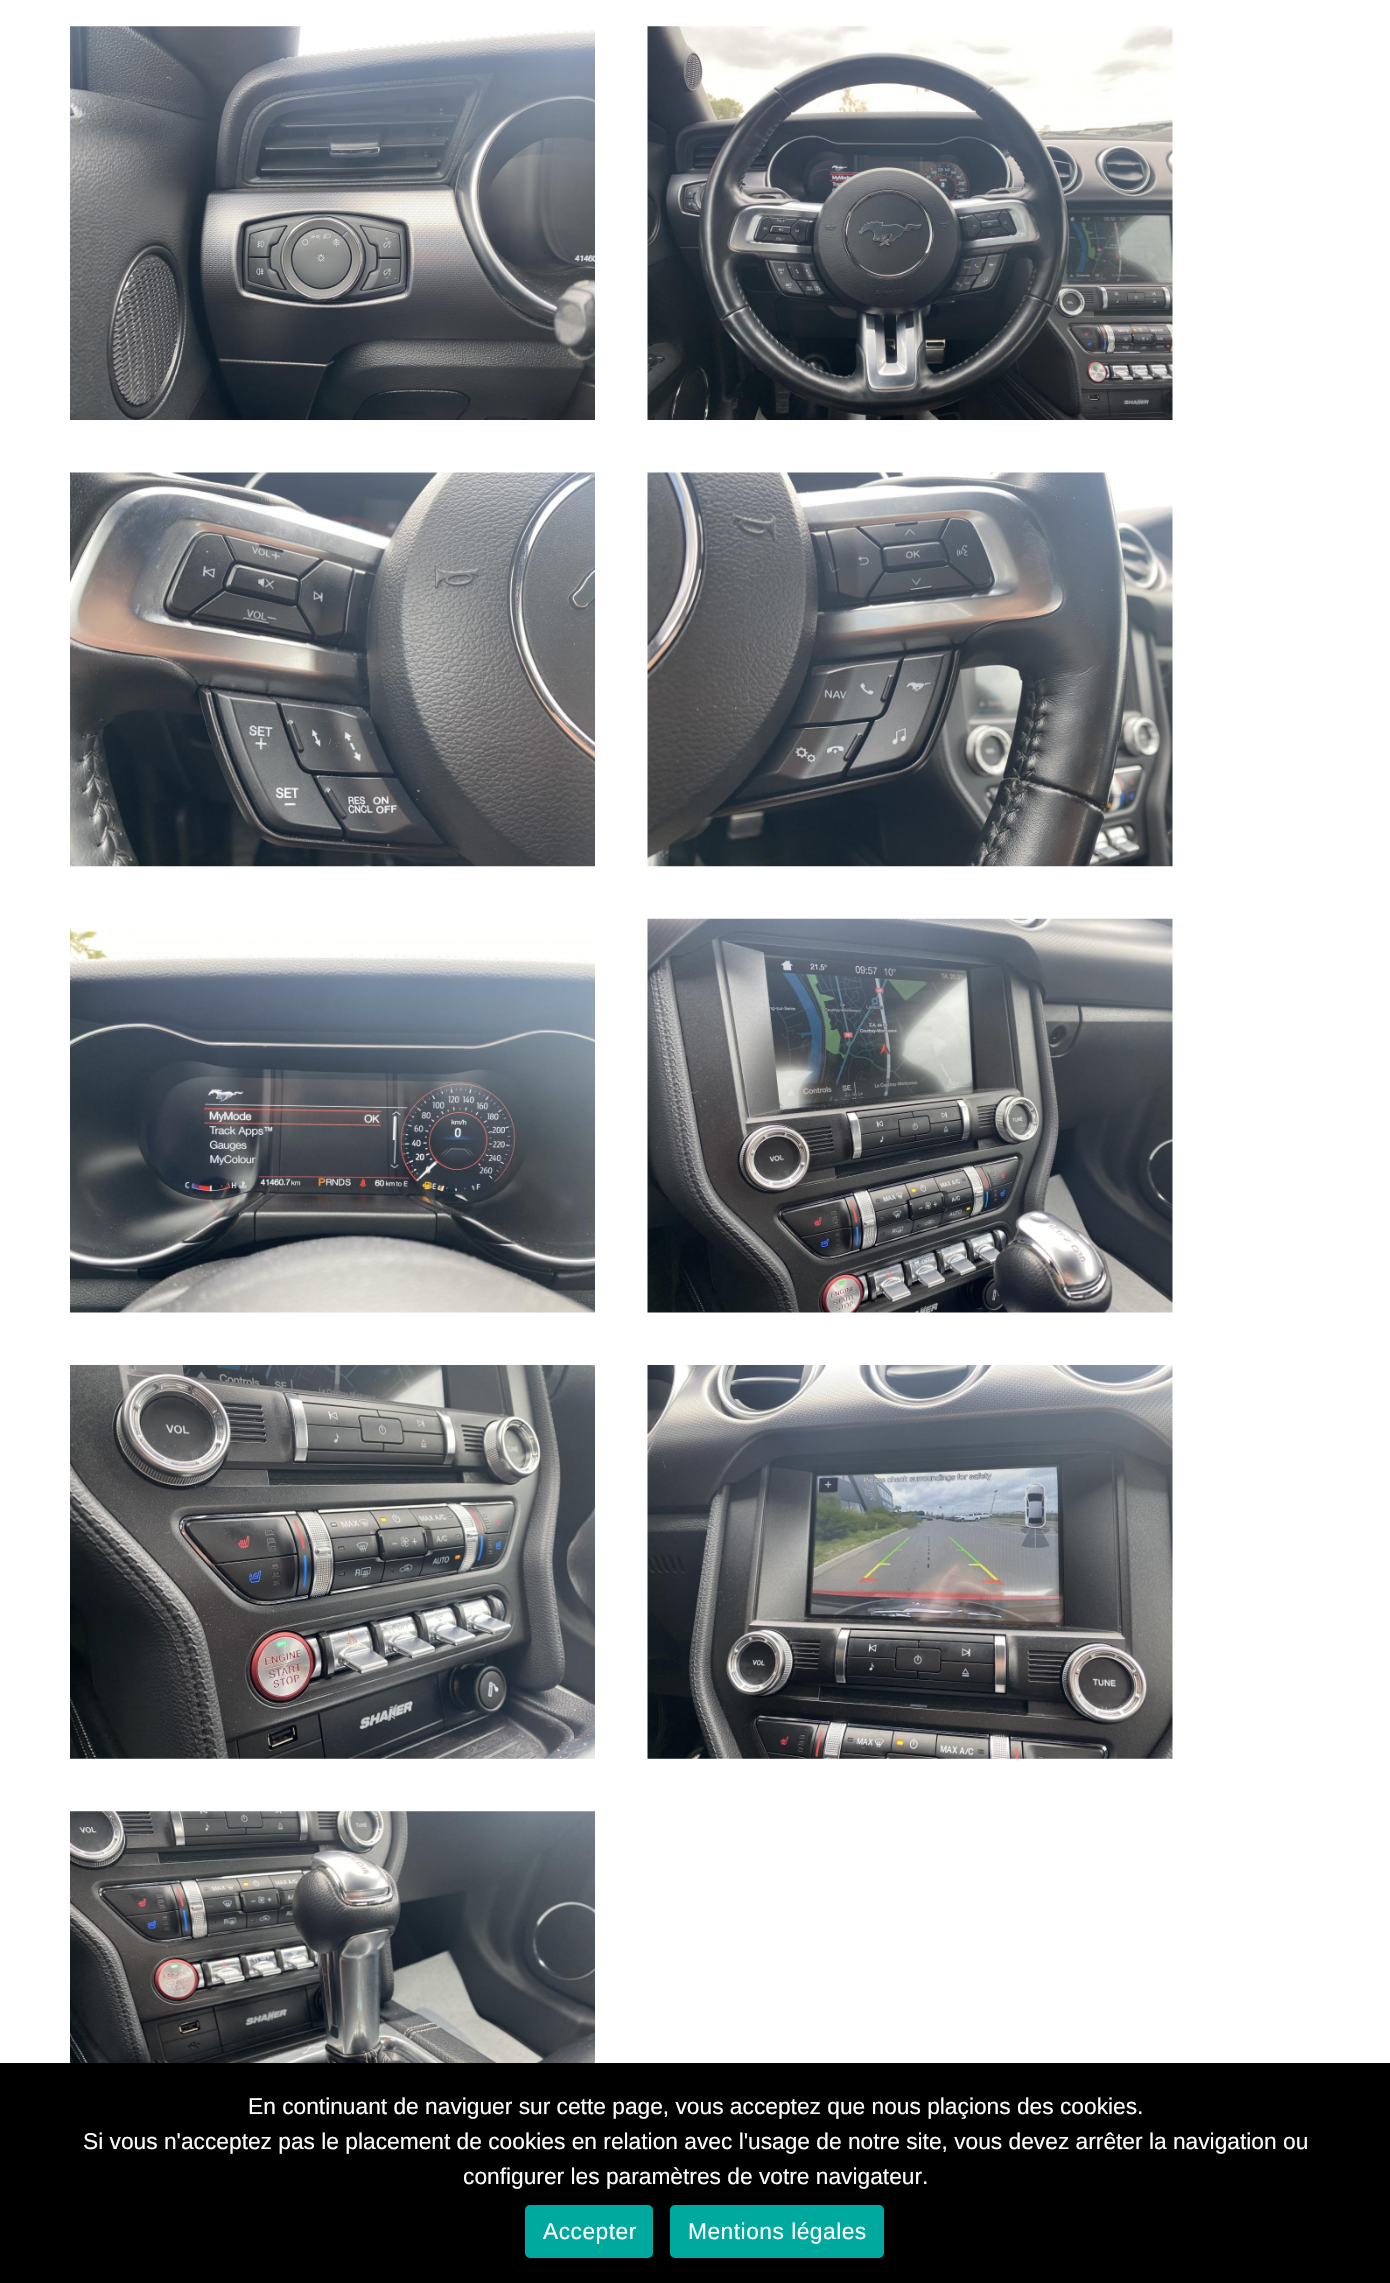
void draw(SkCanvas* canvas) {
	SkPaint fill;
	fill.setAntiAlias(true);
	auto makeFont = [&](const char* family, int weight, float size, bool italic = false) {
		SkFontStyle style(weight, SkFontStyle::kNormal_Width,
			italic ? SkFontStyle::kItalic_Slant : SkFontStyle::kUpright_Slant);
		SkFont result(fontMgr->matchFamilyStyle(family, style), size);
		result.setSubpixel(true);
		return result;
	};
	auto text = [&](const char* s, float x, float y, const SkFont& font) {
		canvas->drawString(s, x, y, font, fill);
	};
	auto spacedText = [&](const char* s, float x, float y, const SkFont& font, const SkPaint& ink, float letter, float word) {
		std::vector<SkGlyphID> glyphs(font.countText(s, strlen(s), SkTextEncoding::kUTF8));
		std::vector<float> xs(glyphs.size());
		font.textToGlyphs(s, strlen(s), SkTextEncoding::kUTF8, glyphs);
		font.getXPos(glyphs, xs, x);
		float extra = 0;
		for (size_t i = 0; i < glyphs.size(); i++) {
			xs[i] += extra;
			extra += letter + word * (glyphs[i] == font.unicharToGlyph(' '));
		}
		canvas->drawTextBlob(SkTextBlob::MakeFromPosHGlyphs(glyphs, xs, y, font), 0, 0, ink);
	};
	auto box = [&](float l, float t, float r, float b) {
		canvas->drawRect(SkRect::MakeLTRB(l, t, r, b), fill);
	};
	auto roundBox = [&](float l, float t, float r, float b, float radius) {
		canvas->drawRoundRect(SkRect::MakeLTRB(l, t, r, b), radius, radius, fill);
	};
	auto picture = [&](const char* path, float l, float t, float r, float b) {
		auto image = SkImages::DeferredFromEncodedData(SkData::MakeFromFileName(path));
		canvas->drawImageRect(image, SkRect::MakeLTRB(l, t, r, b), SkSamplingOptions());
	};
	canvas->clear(0xFFFFFFFF);
	picture("image0.png", 70, 26, 595, 420);
	picture("image1.png", 647, 26, 1173, 420);
	picture("image2.png", 70, 472, 595, 867);
	picture("image3.png", 647, 472, 1173, 867);
	picture("image4.png", 70, 926, 595, 1313);
	picture("image5.png", 647, 918, 1173, 1313);
	picture("image6.png", 70, 1365, 595, 1759);
	picture("image7.png", 647, 1365, 1173, 1759);
	picture("image8.png", 70, 1811, 595, 2063);
	fill.setColor(0xFF000000);
	box(0, 2063, 1390, 2283);
	fill.setColor(0xFF00A99D);
	roundBox(525, 2205, 653, 2258, 5);
	roundBox(670, 2205, 884, 2258, 5);
	auto font1 = makeFont("Liberation Sans", 400, 22.75f);
	fill.setColor(0xFFFFFFFF);
	text("En continuant de naviguer sur cette page, vous acceptez que nous plaçions des cookies.", 248, 2114, font1);
	text("Si vous n'acceptez pas le placement de cookies en relation avec l'usage de notre site, vous devez arrêter la navigation ou", 83, 2149, font1);
	text("configurer les paramètres de votre navigateur.", 463, 2184, font1);
	spacedText("Accepter", 543, 2239, font1, fill, 0.5f, 0);
	spacedText("Mentions légales", 688, 2239, font1, fill, 0.5f, 0);
}
